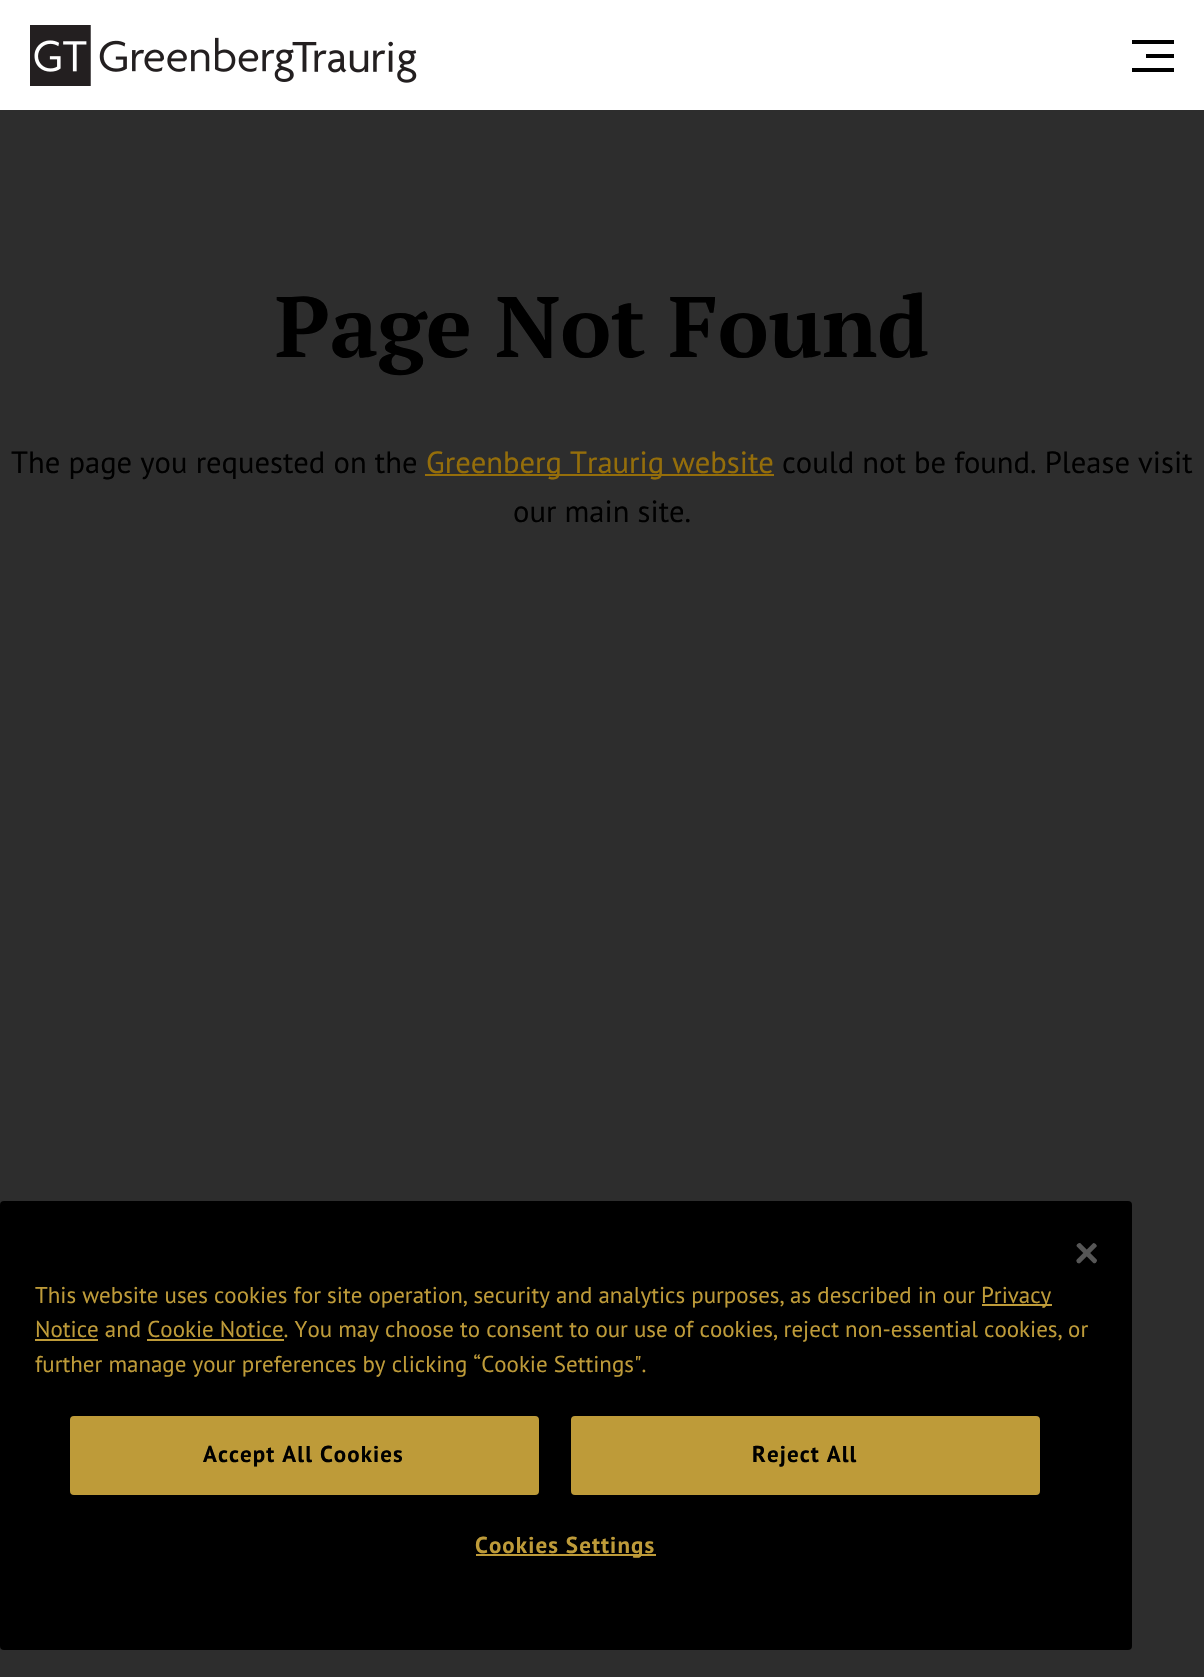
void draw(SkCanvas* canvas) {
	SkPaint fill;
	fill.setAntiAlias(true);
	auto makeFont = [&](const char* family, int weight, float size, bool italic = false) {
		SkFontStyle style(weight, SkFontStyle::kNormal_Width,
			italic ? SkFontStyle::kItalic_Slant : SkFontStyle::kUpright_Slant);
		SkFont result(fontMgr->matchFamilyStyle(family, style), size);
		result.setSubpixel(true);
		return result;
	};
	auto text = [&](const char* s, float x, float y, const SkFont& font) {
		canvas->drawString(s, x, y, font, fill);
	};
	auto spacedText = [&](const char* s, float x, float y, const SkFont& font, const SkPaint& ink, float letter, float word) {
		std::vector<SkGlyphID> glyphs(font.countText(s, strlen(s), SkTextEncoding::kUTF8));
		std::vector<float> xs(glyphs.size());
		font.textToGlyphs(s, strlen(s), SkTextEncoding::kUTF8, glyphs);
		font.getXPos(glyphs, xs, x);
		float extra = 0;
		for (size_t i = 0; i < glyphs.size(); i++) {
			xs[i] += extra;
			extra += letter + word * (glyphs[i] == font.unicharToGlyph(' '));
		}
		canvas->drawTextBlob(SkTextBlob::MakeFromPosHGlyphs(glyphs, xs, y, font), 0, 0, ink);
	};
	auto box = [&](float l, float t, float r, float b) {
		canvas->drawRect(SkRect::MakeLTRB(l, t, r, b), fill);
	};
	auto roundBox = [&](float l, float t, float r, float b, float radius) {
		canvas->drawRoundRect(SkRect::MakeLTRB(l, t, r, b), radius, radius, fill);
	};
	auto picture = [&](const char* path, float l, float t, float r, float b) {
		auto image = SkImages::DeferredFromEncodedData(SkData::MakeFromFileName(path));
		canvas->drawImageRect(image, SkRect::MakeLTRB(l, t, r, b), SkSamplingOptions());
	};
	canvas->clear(0xFF2D2D2D);
	fill.setColor(0xFFFFFFFF);
	box(0, 0, 1204, 110);
	picture("image0.png", 30, 25, 417, 86);
	fill.setColor(0xFF000000);
	box(1146, 54, 1174, 58);
	box(1132, 40, 1174, 44);
	box(1132, 68, 1174, 72);
	fill.setColor(0xFF956E0A);
	box(425, 474, 774, 476);
	fill.setColor(0xFF000000);
	roundBox(0, 1201, 1132, 1650, 4);
	picture("image1.png", 1076, 1243, 1097, 1264);
	fill.setColor(0xFFBE9B39);
	box(982, 1304, 1052, 1306);
	box(35, 1339, 98, 1341);
	box(147, 1339, 284, 1341);
	canvas->drawRoundRect(SkRect::MakeLTRB(71, 1417, 538, 1494), 3, 3, fill);
	fill.setStyle(SkPaint::kStroke_Style);
	fill.setStrokeWidth(2);
	canvas->drawRoundRect(SkRect::MakeLTRB(71, 1417, 538, 1494), 3, 3, fill);
	fill.setStyle(SkPaint::kFill_Style);
	canvas->drawRoundRect(SkRect::MakeLTRB(572, 1417, 1039, 1494), 3, 3, fill);
	fill.setStyle(SkPaint::kStroke_Style);
	canvas->drawRoundRect(SkRect::MakeLTRB(572, 1417, 1039, 1494), 3, 3, fill);
	fill.setStyle(SkPaint::kFill_Style);
	box(476, 1554, 656, 1556);
	auto font1 = makeFont("PT Serif", 700, 85.75f);
	fill.setColor(0xFF000000);
	text("Page Not Found", 275, 357, font1);
	auto font2 = makeFont("PT Sans", 400, 30.6f);
	text("The page you requested on the", 11, 473, font2);
	fill.setColor(0xFF956E0A);
	text("Greenberg Traurig website", 426, 473, font2);
	fill.setColor(0xFF000000);
	text("could not be found. Please visit", 782, 473, font2);
	text("our main site.", 513, 522, font2);
	auto font3 = makeFont("PT Sans", 400, 22.95f);
	fill.setColor(0xFFBE9B39);
	text("This website uses cookies for site operation, security and analytics purposes, as described in our", 35, 1303, font3);
	text("Privacy", 981, 1303, font3);
	text("Notice and Cookie Notice. You may choose to consent to our use of cookies, reject non-essential cookies, or", 35, 1337, font3);
	text("further manage your preferences by clicking “Cookie Settings\".", 35, 1372, font3);
	auto font4 = makeFont("PT Sans", 700, 22.95f);
	fill.setColor(0xFF000000);
	spacedText("Accept All Cookies", 203, 1462, font4, fill, 1.1f, 0);
	spacedText("Reject All", 752, 1462, font4, fill, 1.1f, 0);
	fill.setColor(0xFFBE9B39);
	spacedText("Cookies Settings", 475, 1553, font4, fill, 1.1f, 0);
}
